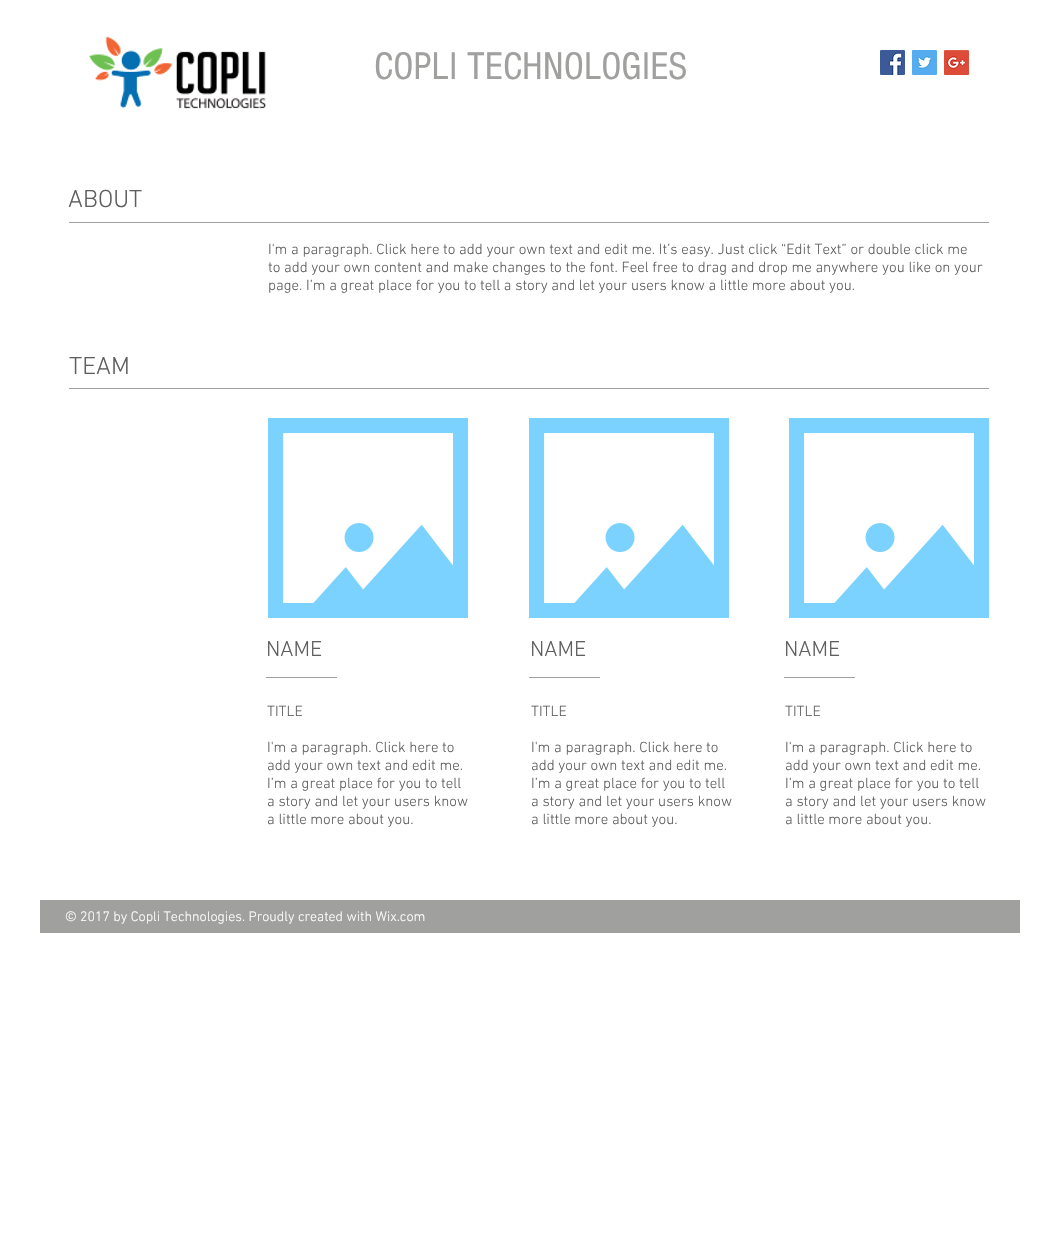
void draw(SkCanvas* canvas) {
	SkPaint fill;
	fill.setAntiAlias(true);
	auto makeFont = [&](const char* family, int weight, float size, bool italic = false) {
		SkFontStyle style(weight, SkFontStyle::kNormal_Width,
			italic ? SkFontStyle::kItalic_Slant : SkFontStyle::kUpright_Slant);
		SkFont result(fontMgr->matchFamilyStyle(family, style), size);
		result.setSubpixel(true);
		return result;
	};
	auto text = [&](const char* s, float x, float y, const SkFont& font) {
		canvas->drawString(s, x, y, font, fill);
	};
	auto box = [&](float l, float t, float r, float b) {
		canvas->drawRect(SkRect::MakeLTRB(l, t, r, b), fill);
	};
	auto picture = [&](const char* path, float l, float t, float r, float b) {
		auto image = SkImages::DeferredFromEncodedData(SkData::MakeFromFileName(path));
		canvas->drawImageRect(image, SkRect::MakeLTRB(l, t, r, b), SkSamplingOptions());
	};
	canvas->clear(0xFFFFFFFF);
	picture("image0.png", 89, 36, 266, 109);
	picture("image1.png", 880, 50, 905, 75);
	picture("image2.png", 912, 50, 937, 75);
	picture("image3.png", 944, 50, 969, 75);
	fill.setColor(0xFFA0A09F);
	box(69, 222, 989, 223);
	box(69, 388, 989, 389);
	picture("image4.png", 268, 418, 468, 618);
	picture("image4.png", 529, 418, 729, 618);
	picture("image4.png", 789, 418, 989, 618);
	box(266, 677, 337, 678);
	box(529, 677, 600, 678);
	box(784, 677, 855, 678);
	box(40, 900, 1020, 933);
	auto font1 = makeFont("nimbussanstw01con", 400, 40);
	text("COPLI TECHNOLOGIES", 374, 79, font1);
	auto font2 = makeFont("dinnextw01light", 300, 25);
	fill.setColor(0xFF605E5E);
	text("ABOUT", 68, 207, font2);
	auto font3 = makeFont("dinnextw01light", 300, 15);
	text("I'm a paragraph. Click here to add your own text and edit me. It’s easy. Just click “Edit Text” or double click me", 268, 254, font3);
	text("to add your own content and make changes to the font. Feel free to drag and drop me anywhere you like on your", 268, 272, font3);
	text("page. I’m a great place for you to tell a story and let your users know a little more about you.", 268, 290, font3);
	text("TEAM", 69, 374, font2);
	auto font4 = makeFont("dinnextw01light", 300, 22);
	text("NAME", 266, 656, font4);
	text("NAME", 530, 656, font4);
	text("NAME", 784, 656, font4);
	text("TITLE", 267, 716, font3);
	text("I'm a paragraph. Click here to", 267, 752, font3);
	text("add your own text and edit me.", 267, 770, font3);
	text("I’m a great place for you to tell", 267, 788, font3);
	text("a story and let your users know", 267, 806, font3);
	text("a little more about you.", 267, 824, font3);
	text("TITLE", 531, 716, font3);
	text("I'm a paragraph. Click here to", 531, 752, font3);
	text("add your own text and edit me.", 531, 770, font3);
	text("I’m a great place for you to tell", 531, 788, font3);
	text("a story and let your users know", 531, 806, font3);
	text("a little more about you.", 531, 824, font3);
	text("TITLE", 785, 716, font3);
	text("I'm a paragraph. Click here to", 785, 752, font3);
	text("add your own text and edit me.", 785, 770, font3);
	text("I’m a great place for you to tell", 785, 788, font3);
	text("a story and let your users know", 785, 806, font3);
	text("a little more about you.", 785, 824, font3);
	auto font5 = makeFont("dinnextw01light", 300, 14);
	fill.setColor(0xFFFFFFFF);
	text("© 2017 by Copli Technologies. Proudly created with Wix.com", 65, 921, font5);
}
